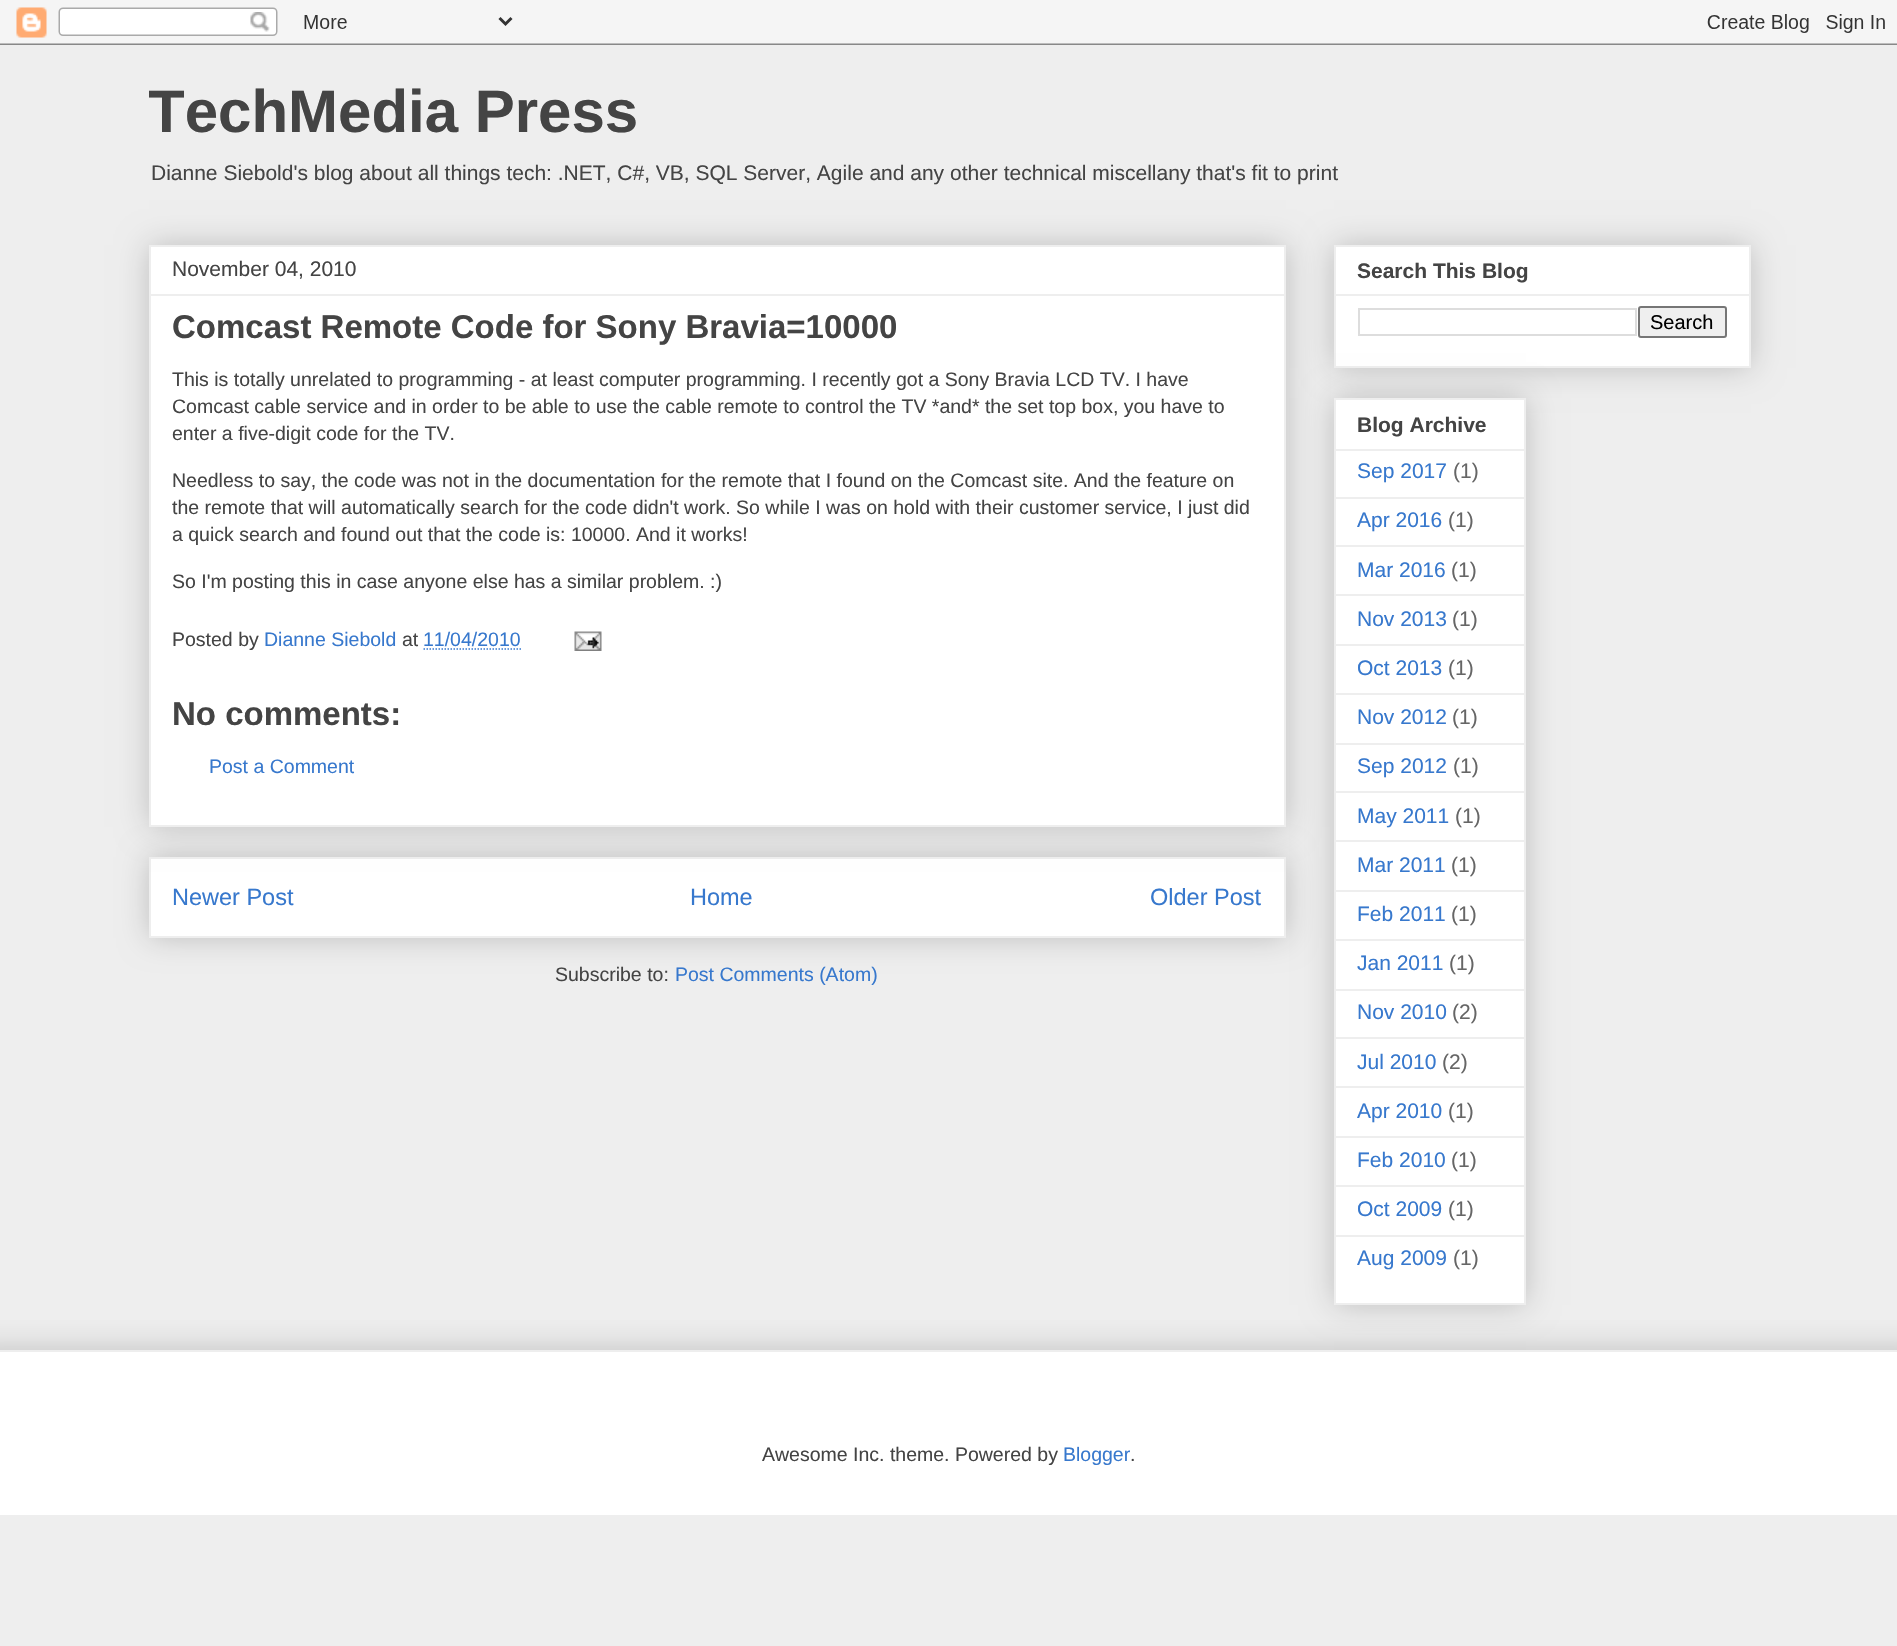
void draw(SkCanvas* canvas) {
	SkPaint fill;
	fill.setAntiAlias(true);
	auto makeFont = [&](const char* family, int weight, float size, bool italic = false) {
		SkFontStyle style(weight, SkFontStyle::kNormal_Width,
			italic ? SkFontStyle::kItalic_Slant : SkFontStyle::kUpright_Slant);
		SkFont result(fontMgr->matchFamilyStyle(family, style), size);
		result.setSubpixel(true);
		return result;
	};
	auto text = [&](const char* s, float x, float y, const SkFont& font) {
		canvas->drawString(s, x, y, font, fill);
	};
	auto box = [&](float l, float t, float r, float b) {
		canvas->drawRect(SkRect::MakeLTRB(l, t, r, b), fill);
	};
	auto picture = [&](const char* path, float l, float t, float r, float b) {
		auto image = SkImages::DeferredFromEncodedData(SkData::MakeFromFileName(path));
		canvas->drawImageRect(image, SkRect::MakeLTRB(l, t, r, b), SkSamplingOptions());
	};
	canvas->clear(0xFFEEEEEE);
	picture("image0.png", 0, 0, 1897, 45);
	fill.setColor(0x33000000);
	fill.setMaskFilter(SkMaskFilter::MakeBlur(kNormal_SkBlurStyle, 15));
	canvas->drawRect(SkRect::MakeLTRB(149, 857, 1286, 938), fill);
	fill.setMaskFilter(nullptr);
	fill.setColor(0xFFFFFFFF);
	canvas->drawRect(SkRect::MakeLTRB(150, 858, 1285, 937), fill);
	fill.setStyle(SkPaint::kStroke_Style);
	fill.setStrokeWidth(2);
	fill.setColor(0xFFEEEEEE);
	canvas->drawRect(SkRect::MakeLTRB(150, 858, 1285, 937), fill);
	fill.setStyle(SkPaint::kFill_Style);
	fill.setColor(0x33000000);
	fill.setMaskFilter(SkMaskFilter::MakeBlur(kNormal_SkBlurStyle, 15));
	canvas->drawRect(SkRect::MakeLTRB(149, 245, 1286, 827), fill);
	fill.setMaskFilter(nullptr);
	fill.setColor(0xFFFFFFFF);
	canvas->drawRect(SkRect::MakeLTRB(150, 246, 1285, 826), fill);
	fill.setStyle(SkPaint::kStroke_Style);
	fill.setColor(0xFFEEEEEE);
	canvas->drawRect(SkRect::MakeLTRB(150, 246, 1285, 826), fill);
	fill.setStyle(SkPaint::kFill_Style);
	box(150, 294, 1284, 296);
	fill.setStyle(SkPaint::kStroke_Style);
	fill.setStrokeWidth(1.5f);
	fill.setColor(0xFF3778CD);
	fill.setPathEffect(SkDashPathEffect::Make({{1.5f, 1.5f}}, 0));
	canvas->drawPath(SkPathBuilder().moveTo(423.5f, 649).lineTo(521, 649).detach(), fill);
	fill.setPathEffect(nullptr);
	picture("image1.png", 574, 631, 602, 651);
	fill.setStyle(SkPaint::kFill_Style);
	fill.setColor(0x33000000);
	fill.setMaskFilter(SkMaskFilter::MakeBlur(kNormal_SkBlurStyle, 15));
	canvas->drawRect(SkRect::MakeLTRB(1334, 245, 1751, 368), fill);
	fill.setMaskFilter(nullptr);
	fill.setColor(0xFFFFFFFF);
	canvas->drawRect(SkRect::MakeLTRB(1335, 246, 1750, 367), fill);
	fill.setStyle(SkPaint::kStroke_Style);
	fill.setStrokeWidth(2);
	fill.setColor(0xFFEEEEEE);
	canvas->drawRect(SkRect::MakeLTRB(1335, 246, 1750, 367), fill);
	fill.setStyle(SkPaint::kFill_Style);
	box(1335, 294, 1749, 296);
	fill.setStyle(SkPaint::kStroke_Style);
	fill.setColor(0xFFDDDDDD);
	canvas->drawRect(SkRect::MakeLTRB(1359, 309, 1636, 335), fill);
	fill.setStyle(SkPaint::kFill_Style);
	fill.setColor(0xFFEFEFEF);
	canvas->drawRoundRect(SkRect::MakeLTRB(1639, 307, 1726, 337), 2, 2, fill);
	fill.setStyle(SkPaint::kStroke_Style);
	fill.setColor(0xFF767676);
	canvas->drawRoundRect(SkRect::MakeLTRB(1639, 307, 1726, 337), 2, 2, fill);
	fill.setStyle(SkPaint::kFill_Style);
	fill.setColor(0x33000000);
	fill.setMaskFilter(SkMaskFilter::MakeBlur(kNormal_SkBlurStyle, 15));
	canvas->drawRect(SkRect::MakeLTRB(1334, 398, 1526, 1305), fill);
	fill.setMaskFilter(nullptr);
	fill.setColor(0xFFFFFFFF);
	canvas->drawRect(SkRect::MakeLTRB(1335, 399, 1525, 1304), fill);
	fill.setStyle(SkPaint::kStroke_Style);
	fill.setColor(0xFFEEEEEE);
	canvas->drawRect(SkRect::MakeLTRB(1335, 399, 1525, 1304), fill);
	fill.setStyle(SkPaint::kFill_Style);
	box(1335, 449, 1524, 451);
	box(1335, 497, 1524, 499);
	box(1335, 545, 1524, 547);
	box(1335, 594, 1524, 596);
	box(1335, 644, 1524, 646);
	box(1335, 693, 1524, 695);
	box(1335, 743, 1524, 745);
	box(1335, 791, 1524, 793);
	box(1335, 840, 1524, 842);
	box(1335, 890, 1524, 892);
	box(1335, 939, 1524, 941);
	box(1335, 989, 1524, 991);
	box(1335, 1037, 1524, 1039);
	box(1335, 1086, 1524, 1088);
	box(1335, 1136, 1524, 1138);
	box(1335, 1185, 1524, 1187);
	box(1335, 1235, 1524, 1237);
	canvas->save();
	canvas->clipRect(SkRect::MakeLTRB(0, 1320, 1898, 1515));
	fill.setColor(0x33000000);
	fill.setMaskFilter(SkMaskFilter::MakeBlur(kNormal_SkBlurStyle, 15));
	canvas->drawRect(SkRect::MakeLTRB(-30, 1350, 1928, 1515), fill);
	fill.setMaskFilter(nullptr);
	canvas->restore();
	fill.setColor(0xFFFFFFFF);
	box(0, 1352, 1897, 1515);
	fill.setColor(0xFFEEEEEE);
	box(0, 1350, 1897, 1352);
	canvas->save();
	canvas->clipRect(SkRect::MakeLTRB(149, 45, 1751, 200));
	auto font1 = makeFont("Liberation Sans", 700, 60);
	fill.setColor(0xFF444444);
	text("TechMedia Press", 148, 132, font1);
	canvas->restore();
	auto font2 = makeFont("Liberation Sans", 400, 21);
	text("Dianne Siebold's blog about all things tech: .NET, C#, VB, SQL Server, Agile and any other technical miscellany that's fit to print", 151, 180, font2);
	text("November 04, 2010", 172, 276, font2);
	auto font3 = makeFont("Liberation Sans", 700, 33);
	text("Comcast Remote Code for Sony Bravia=10000", 172, 338, font3);
	auto font4 = makeFont("Liberation Sans", 400, 19.5f);
	text("This is totally unrelated to programming - at least computer programming. I recently got a Sony Bravia LCD TV. I have", 172, 386, font4);
	text("Comcast cable service and in order to be able to use the cable remote to control the TV *and* the set top box, you have to", 172, 413, font4);
	text("enter a five-digit code for the TV.", 172, 440, font4);
	text("Needless to say, the code was not in the documentation for the remote that I found on the Comcast site. And the feature on", 172, 487, font4);
	text("the remote that will automatically search for the code didn't work. So while I was on hold with their customer service, I just did", 172, 514, font4);
	text("a quick search and found out that the code is: 10000. And it works!", 172, 541, font4);
	text("So I'm posting this in case anyone else has a similar problem. :)", 172, 588, font4);
	text("Posted by", 172, 646, font4);
	fill.setColor(0xFF3778CD);
	text("Dianne Siebold", 264, 646, font4);
	fill.setColor(0xFF444444);
	text("at", 402, 646, font4);
	fill.setColor(0xFF3778CD);
	text("11/04/2010", 423, 646, font4);
	fill.setColor(0xFF444444);
	text("No comments:", 172, 725, font3);
	fill.setColor(0xFF3778CD);
	text("Post a Comment", 209, 773, font4);
	auto font5 = makeFont("Liberation Sans", 400, 23.5f);
	text("Newer Post", 172, 905, font5);
	text("Home", 690, 905, font5);
	text("Older Post", 1150, 905, font5);
	fill.setColor(0xFF444444);
	text("Subscribe to:", 555, 981, font4);
	fill.setColor(0xFF3778CD);
	text("Post Comments (Atom)", 675, 981, font4);
	auto font6 = makeFont("Liberation Sans", 700, 21);
	fill.setColor(0xFF444444);
	text("Search This Blog", 1357, 278, font6);
	auto font7 = makeFont("Liberation Sans", 400, 20);
	fill.setColor(0xFF000000);
	text("Search", 1650, 329, font7);
	fill.setColor(0xFF444444);
	text("Blog Archive", 1357, 432, font6);
	fill.setColor(0xFF3778CD);
	text("Sep 2017", 1357, 478, font2);
	fill.setColor(0xFF666666);
	text("(1)", 1453, 478, font2);
	fill.setColor(0xFF3778CD);
	text("Apr 2016", 1357, 527, font2);
	fill.setColor(0xFF666666);
	text("(1)", 1448, 527, font2);
	fill.setColor(0xFF3778CD);
	text("Mar 2016", 1357, 577, font2);
	fill.setColor(0xFF666666);
	text("(1)", 1451, 577, font2);
	fill.setColor(0xFF3778CD);
	text("Nov 2013", 1357, 626, font2);
	fill.setColor(0xFF666666);
	text("(1)", 1452, 626, font2);
	fill.setColor(0xFF3778CD);
	text("Oct 2013", 1357, 675, font2);
	fill.setColor(0xFF666666);
	text("(1)", 1448, 675, font2);
	fill.setColor(0xFF3778CD);
	text("Nov 2012", 1357, 724, font2);
	fill.setColor(0xFF666666);
	text("(1)", 1452, 724, font2);
	fill.setColor(0xFF3778CD);
	text("Sep 2012", 1357, 773, font2);
	fill.setColor(0xFF666666);
	text("(1)", 1453, 773, font2);
	fill.setColor(0xFF3778CD);
	text("May 2011", 1357, 823, font2);
	fill.setColor(0xFF666666);
	text("(1)", 1455, 823, font2);
	fill.setColor(0xFF3778CD);
	text("Mar 2011", 1357, 872, font2);
	fill.setColor(0xFF666666);
	text("(1)", 1451, 872, font2);
	fill.setColor(0xFF3778CD);
	text("Feb 2011", 1357, 921, font2);
	fill.setColor(0xFF666666);
	text("(1)", 1451, 921, font2);
	fill.setColor(0xFF3778CD);
	text("Jan 2011", 1357, 970, font2);
	fill.setColor(0xFF666666);
	text("(1)", 1449, 970, font2);
	fill.setColor(0xFF3778CD);
	text("Nov 2010", 1357, 1019, font2);
	fill.setColor(0xFF666666);
	text("(2)", 1452, 1019, font2);
	fill.setColor(0xFF3778CD);
	text("Jul 2010", 1357, 1069, font2);
	fill.setColor(0xFF666666);
	text("(2)", 1442, 1069, font2);
	fill.setColor(0xFF3778CD);
	text("Apr 2010", 1357, 1118, font2);
	fill.setColor(0xFF666666);
	text("(1)", 1448, 1118, font2);
	fill.setColor(0xFF3778CD);
	text("Feb 2010", 1357, 1167, font2);
	fill.setColor(0xFF666666);
	text("(1)", 1451, 1167, font2);
	fill.setColor(0xFF3778CD);
	text("Oct 2009", 1357, 1216, font2);
	fill.setColor(0xFF666666);
	text("(1)", 1448, 1216, font2);
	fill.setColor(0xFF3778CD);
	text("Aug 2009", 1357, 1265, font2);
	fill.setColor(0xFF666666);
	text("(1)", 1453, 1265, font2);
	fill.setColor(0xFF444444);
	text("Awesome Inc. theme. Powered by", 762, 1461, font4);
	fill.setColor(0xFF3778CD);
	text("Blogger", 1063, 1461, font4);
	fill.setColor(0xFF444444);
	text(".", 1130, 1461, font4);
}
